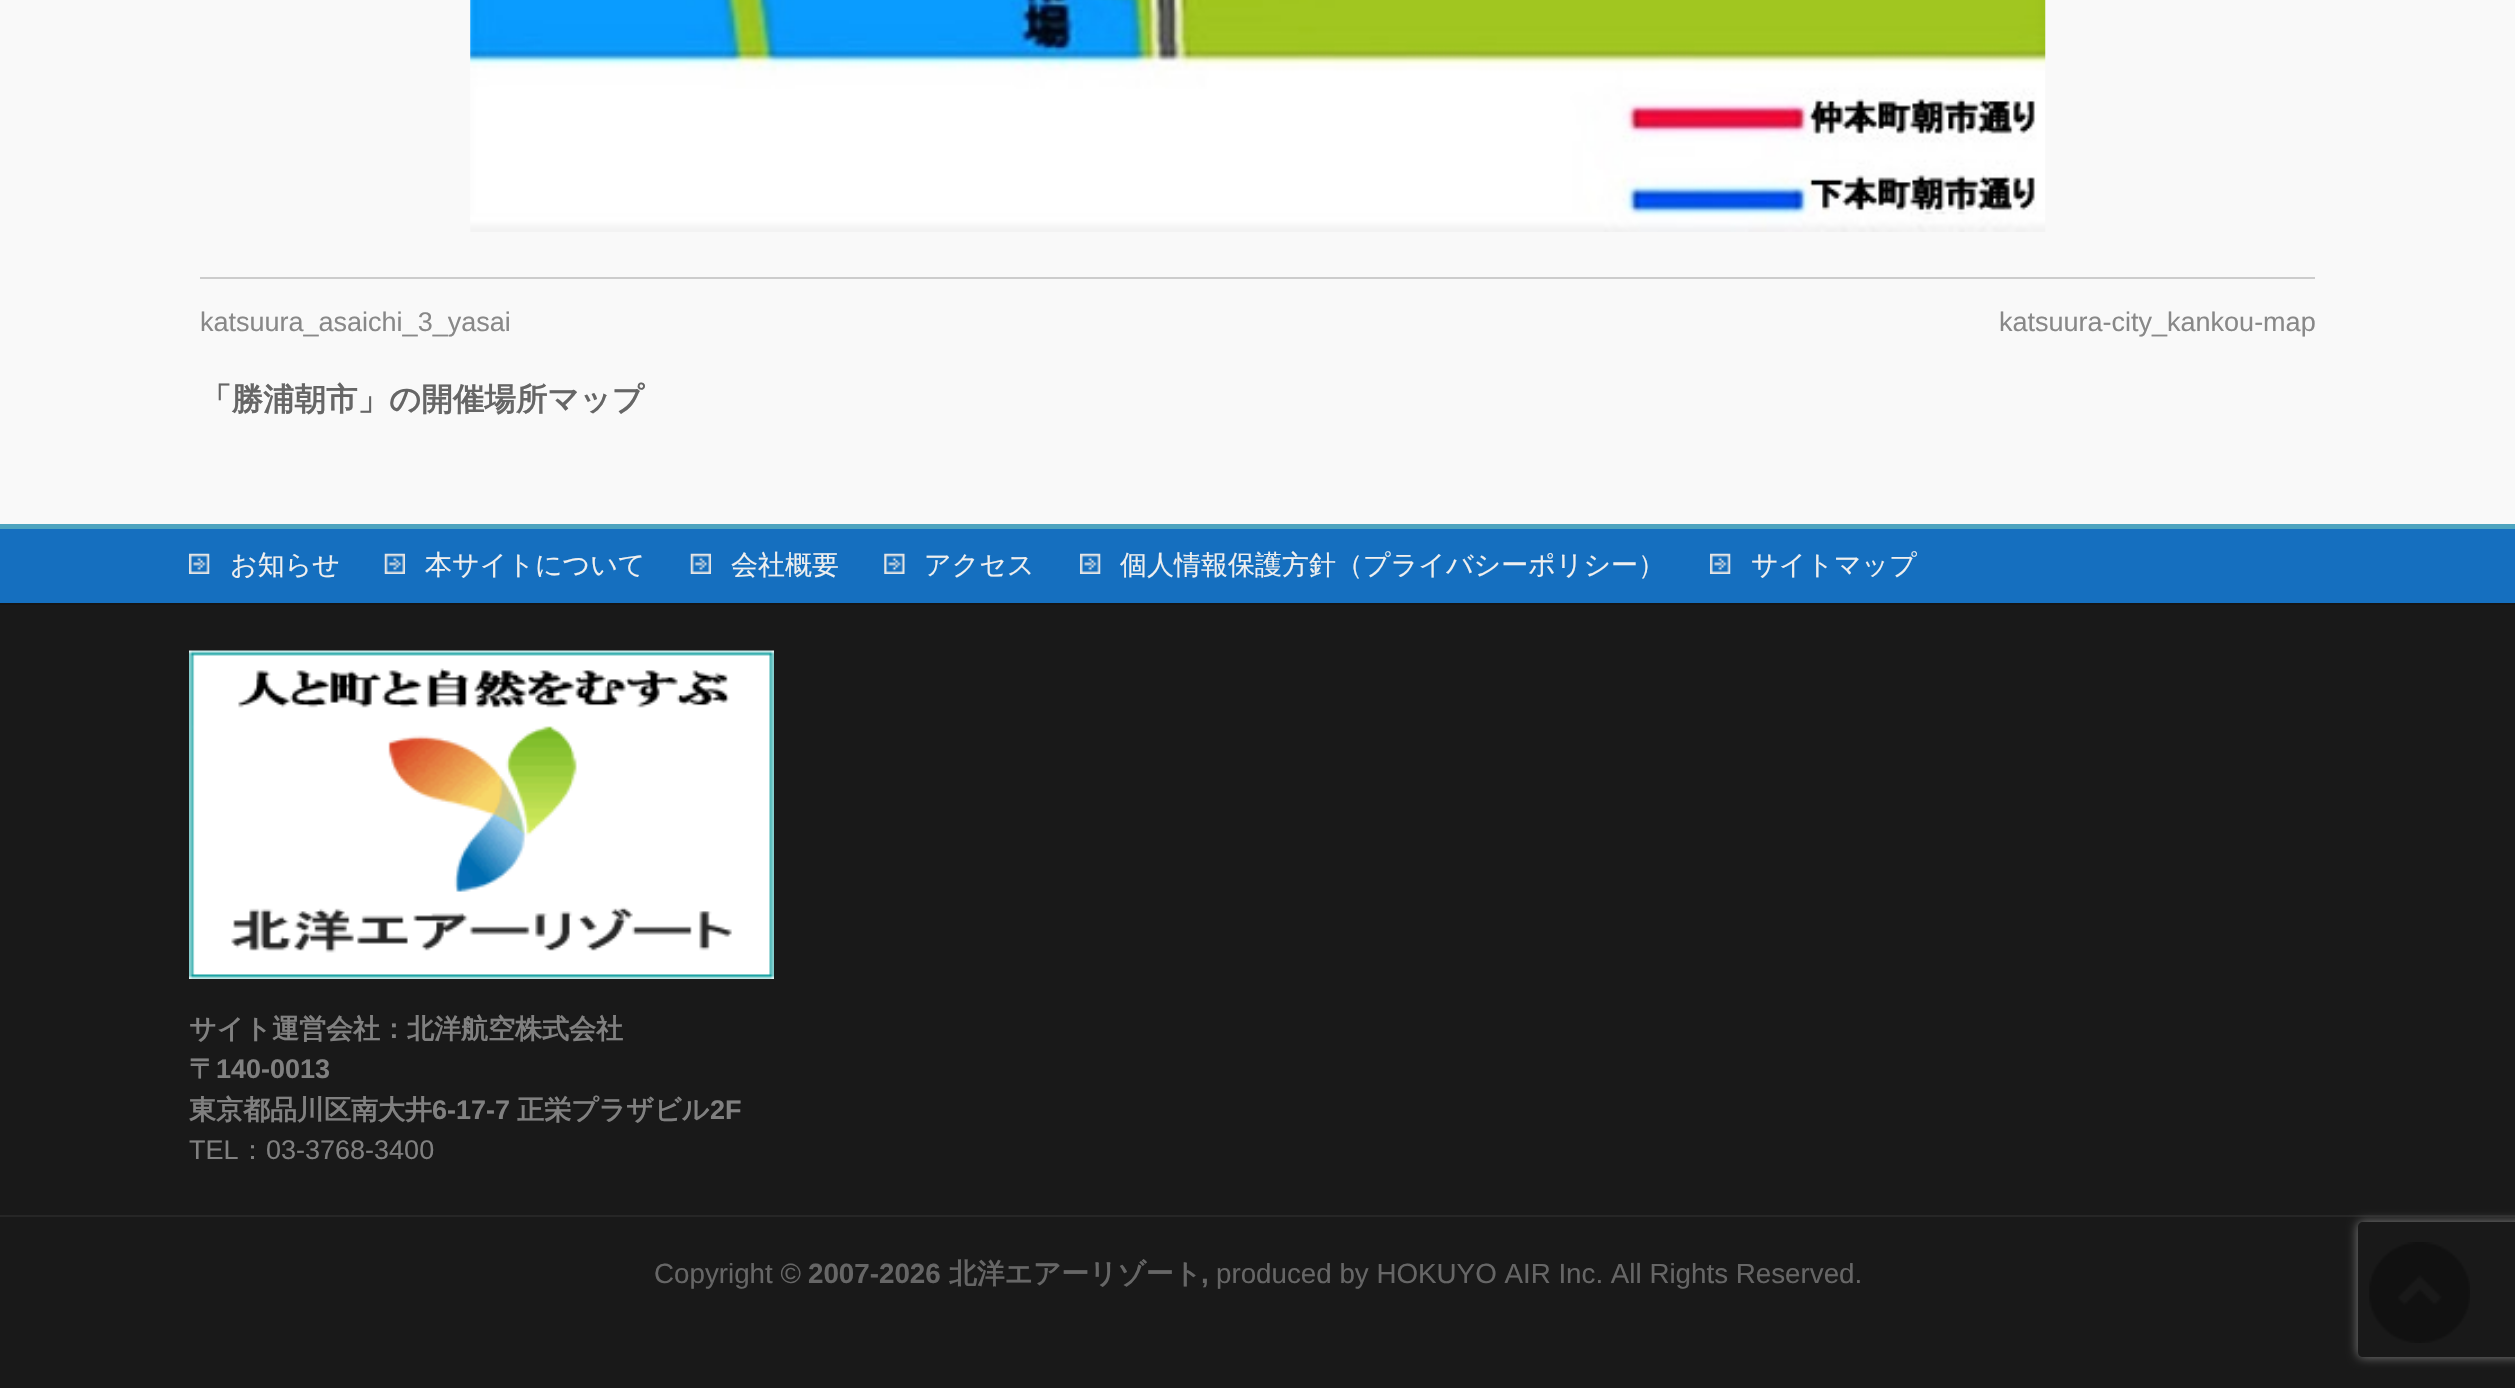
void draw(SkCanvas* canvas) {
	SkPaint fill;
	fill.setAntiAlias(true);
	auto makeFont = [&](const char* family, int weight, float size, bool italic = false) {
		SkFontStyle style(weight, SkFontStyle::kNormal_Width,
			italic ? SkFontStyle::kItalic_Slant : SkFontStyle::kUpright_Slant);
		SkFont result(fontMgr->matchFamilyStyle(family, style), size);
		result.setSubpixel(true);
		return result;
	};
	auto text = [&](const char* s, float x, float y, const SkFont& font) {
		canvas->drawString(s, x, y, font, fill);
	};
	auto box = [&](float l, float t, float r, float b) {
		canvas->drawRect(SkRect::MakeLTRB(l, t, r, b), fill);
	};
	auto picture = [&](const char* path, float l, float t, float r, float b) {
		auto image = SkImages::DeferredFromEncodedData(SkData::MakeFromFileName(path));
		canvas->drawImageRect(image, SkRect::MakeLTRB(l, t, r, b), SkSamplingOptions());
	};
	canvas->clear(0xFFF9F9F9);
	picture("image0.png", 470, 0, 2046, 232);
	fill.setColor(0xFFCCCCCC);
	box(200, 277, 2315, 279);
	fill.setColor(0xFF156FBF);
	box(0, 529, 2515, 603);
	fill.setColor(0xFF4EA4BF);
	box(0, 524, 2515, 529);
	picture("image1.png", 189, 553, 210, 574);
	picture("image2.png", 384, 553, 405, 574);
	picture("image2.png", 690, 553, 711, 574);
	picture("image3.png", 884, 553, 905, 574);
	picture("image1.png", 1080, 553, 1101, 574);
	picture("image4.png", 1710, 553, 1731, 574);
	fill.setColor(0xFF191919);
	box(0, 605, 2515, 1215);
	fill.setColor(0xFF151515);
	box(0, 603, 2515, 605);
	picture("image5.png", 189, 650, 774, 979);
	fill.setColor(0xFF191919);
	box(0, 1217, 2515, 1388);
	fill.setColor(0xFF262626);
	box(0, 1215, 2515, 1217);
	canvas->save();
	canvas->clipPath(SkPathBuilder(SkPathFillType::kEvenOdd).moveTo(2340, 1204).lineTo(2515, 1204).lineTo(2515, 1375).lineTo(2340, 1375).close().moveTo(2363, 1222).lineTo(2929, 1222).cubicTo(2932, 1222, 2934, 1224, 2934, 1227).lineTo(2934, 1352).cubicTo(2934, 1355, 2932, 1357, 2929, 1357).lineTo(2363, 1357).cubicTo(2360, 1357, 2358, 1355, 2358, 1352).lineTo(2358, 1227).cubicTo(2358, 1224, 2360, 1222, 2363, 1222).close().detach(), true);
	fill.setColor(0xFF808080);
	fill.setMaskFilter(SkMaskFilter::MakeBlur(kNormal_SkBlurStyle, 5.5f));
	canvas->drawRoundRect(SkRect::MakeLTRB(2358, 1222, 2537, 1357), 5, 5, fill);
	fill.setMaskFilter(nullptr);
	canvas->restore();
	picture("image6.png", 2369, 1242, 2470, 1343);
	auto font1 = makeFont("Liberation Sans", 400, 27);
	fill.setColor(0xFF888888);
	text("katsuura_asaichi_3_yasai", 200, 331, font1);
	text("katsuura-city_kankou-map", 1999, 331, font1);
	auto font2 = makeFont("WenQuanYi Zen Hei", 700, 31.5f);
	fill.setColor(0xFF666666);
	text("「勝浦朝市」の開催場所マップ", 200, 410, font2);
	auto font3 = makeFont("WenQuanYi Zen Hei", 500, 27);
	fill.setColor(0xFFEFEFEF);
	text("お知らせ", 230, 574, font3);
	text("本サイトについて", 425, 574, font3);
	text("会社概要", 731, 574, font3);
	text("アクセス", 924, 574, font3);
	text("個人情報保護方針（プライバシーポリシー）", 1120, 574, font3);
	text("サイトマップ", 1751, 574, font3);
	auto font4 = makeFont("WenQuanYi Zen Hei", 700, 27);
	fill.setColor(0xFF808080);
	text("サイト運営会社：北洋航空株式会社", 189, 1038, font4);
	text("〒", 189, 1078, font4);
	auto font5 = makeFont("Liberation Sans", 700, 27);
	text("140-0013", 216, 1078, font5);
	text("東京都品川区南大井", 189, 1119, font4);
	text("6-17-7", 432, 1119, font5);
	text("正栄プラザビル", 517, 1119, font4);
	text("2F", 710, 1119, font5);
	text("TEL", 189, 1159, font1);
	text("：", 239, 1159, font3);
	text("03-3768-3400", 266, 1159, font1);
	auto font6 = makeFont("Liberation Sans", 400, 27.75f);
	fill.setColor(0xFF666666);
	text("Copyright ©", 654, 1283, font6);
	auto font7 = makeFont("Liberation Sans", 700, 27.75f);
	text("2007-2026", 808, 1283, font7);
	auto font8 = makeFont("WenQuanYi Zen Hei", 700, 27.75f);
	text("北洋エアーリゾート", 949, 1283, font8);
	text(",", 1201, 1283, font7);
	text("produced by HOKUYO AIR Inc. All Rights Reserved.", 1216, 1283, font6);
}
